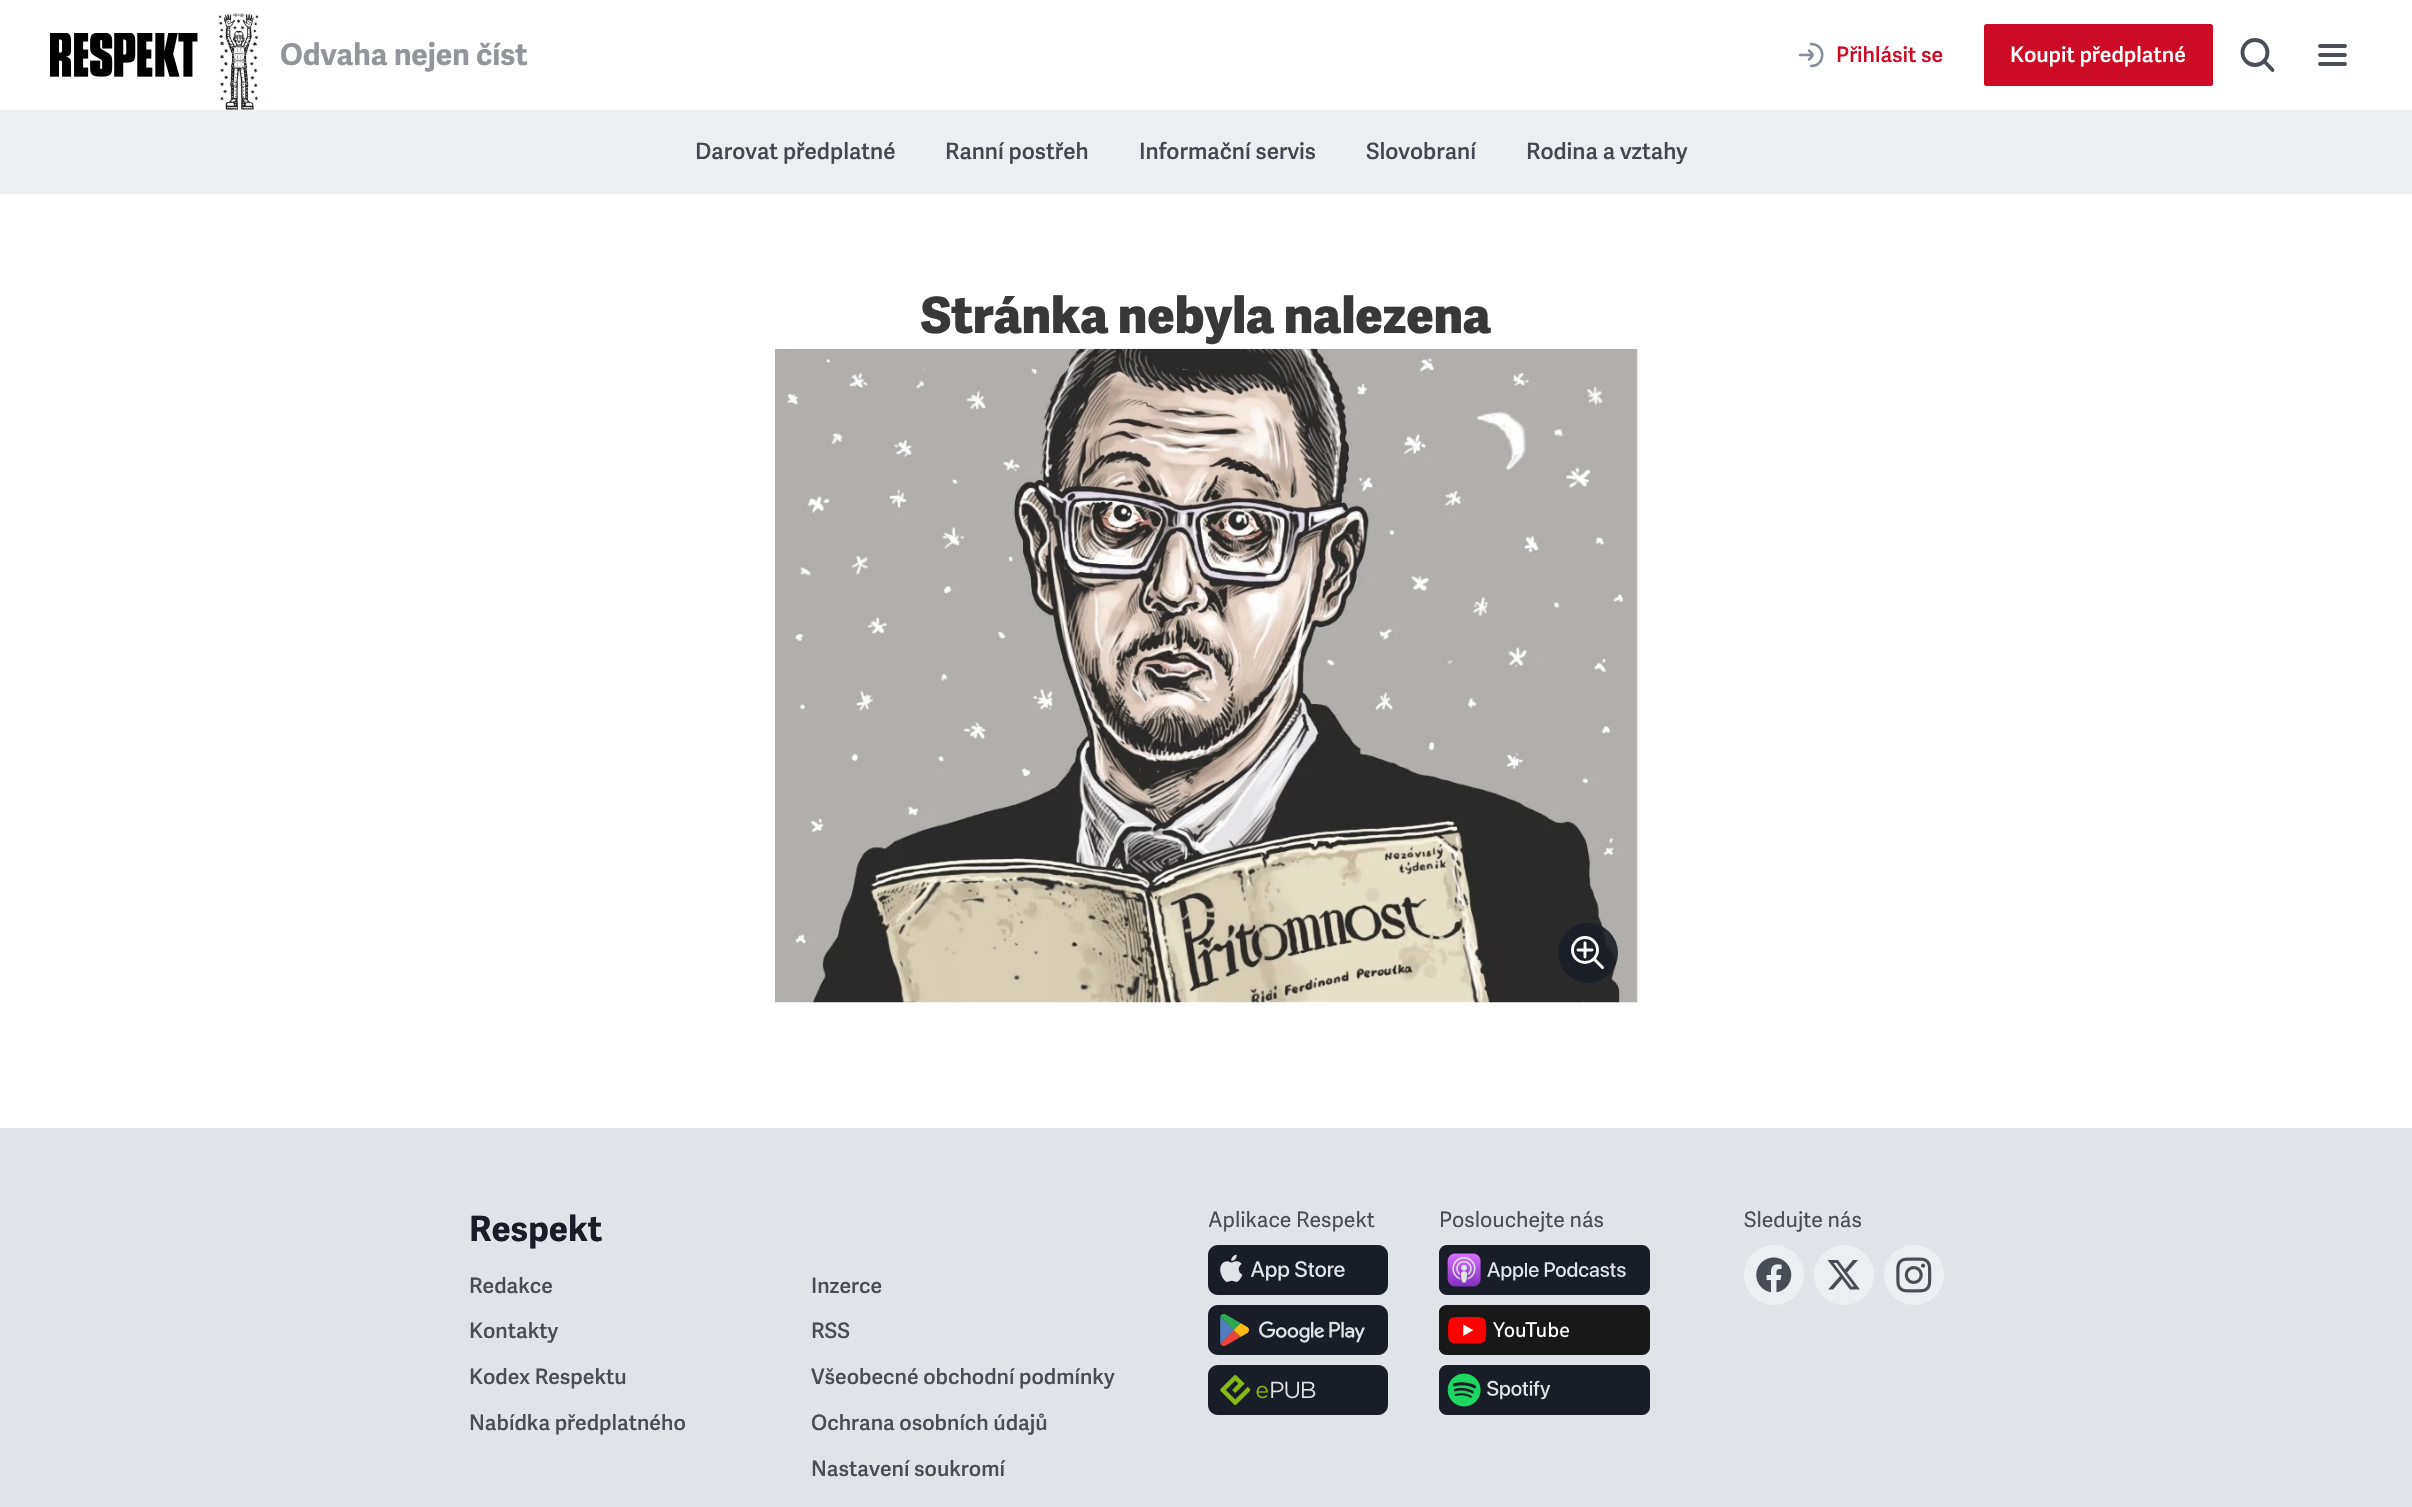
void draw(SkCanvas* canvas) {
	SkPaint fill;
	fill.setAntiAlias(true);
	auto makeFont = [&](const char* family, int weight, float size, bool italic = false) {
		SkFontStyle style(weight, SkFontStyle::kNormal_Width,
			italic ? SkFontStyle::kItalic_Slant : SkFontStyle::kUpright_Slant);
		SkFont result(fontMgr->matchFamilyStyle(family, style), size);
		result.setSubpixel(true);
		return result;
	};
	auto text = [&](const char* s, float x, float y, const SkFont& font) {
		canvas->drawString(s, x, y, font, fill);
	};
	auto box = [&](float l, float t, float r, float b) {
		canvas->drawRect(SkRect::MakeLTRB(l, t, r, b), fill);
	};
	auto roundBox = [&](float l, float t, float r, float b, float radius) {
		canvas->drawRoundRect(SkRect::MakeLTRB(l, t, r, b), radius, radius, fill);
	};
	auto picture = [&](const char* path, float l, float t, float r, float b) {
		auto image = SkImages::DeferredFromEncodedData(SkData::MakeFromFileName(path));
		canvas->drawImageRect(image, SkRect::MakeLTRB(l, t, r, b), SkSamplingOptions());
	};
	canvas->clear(0xFFFFFFFF);
	picture("image0.png", 50, 33, 198, 77);
	picture("image1.png", 217, 13, 259, 110);
	fill.setStyle(SkPaint::kStroke_Style);
	fill.setStrokeWidth(2.5f);
	fill.setStrokeCap(SkPaint::kRound_Cap);
	fill.setStrokeJoin(SkPaint::kRound_Join);
	fill.setColor(0xFF868D98);
	canvas->drawPath(SkPathBuilder().moveTo(1811, 66).cubicTo(1826, 66, 1826, 44, 1811, 44).moveTo(1800, 55).lineTo(1812, 55).moveTo(1809, 50.5f).cubicTo(1814, 55.5f, 1814, 54.5f, 1809, 59.5f).detach(), fill);
	fill.setStyle(SkPaint::kFill_Style);
	fill.setColor(0xFFCE0B24);
	roundBox(1984, 24, 2213, 86, 2.5f);
	fill.setStyle(SkPaint::kStroke_Style);
	fill.setStrokeWidth(3.8f);
	fill.setStrokeCap(SkPaint::kButt_Cap);
	fill.setStrokeJoin(SkPaint::kMiter_Join);
	fill.setColor(0xFF494E56);
	canvas->drawCircle(2255, 52.5f, 12.5f, fill);
	fill.setStrokeCap(SkPaint::kRound_Cap);
	fill.setStrokeJoin(SkPaint::kRound_Join);
	canvas->drawPath(SkPathBuilder().moveTo(2264, 61).lineTo(2272.5f, 70).detach(), fill);
	canvas->drawPath(SkPathBuilder().moveTo(2320, 46).lineTo(2345, 46).moveTo(2320, 55).lineTo(2345, 55).moveTo(2320, 64).lineTo(2345, 64).detach(), fill);
	fill.setStyle(SkPaint::kFill_Style);
	fill.setColor(0xFFECEFF2);
	box(0, 110, 2412, 194);
	picture("image2.png", 775, 348, 1638, 1003);
	fill.setColor(0xE6181D27);
	canvas->drawCircle(1588, 953, 30, fill);
	fill.setStyle(SkPaint::kStroke_Style);
	fill.setStrokeWidth(2.9f);
	fill.setStrokeCap(SkPaint::kButt_Cap);
	fill.setStrokeJoin(SkPaint::kMiter_Join);
	fill.setColor(0xFFFFFFFF);
	canvas->drawCircle(1585, 950, 12.5f, fill);
	fill.setStrokeCap(SkPaint::kRound_Cap);
	fill.setStrokeJoin(SkPaint::kRound_Join);
	canvas->drawPath(SkPathBuilder().moveTo(1585, 957).lineTo(1585, 943).moveTo(1578, 950).lineTo(1592, 950).moveTo(1594, 959).lineTo(1602.5f, 967.5f).detach(), fill);
	fill.setStyle(SkPaint::kFill_Style);
	fill.setColor(0xFFE0E4E9);
	box(0, 1128, 2412, 1507);
	picture("image3.png", 1208, 1245, 1388, 1295);
	picture("image4.png", 1208, 1305, 1388, 1355);
	picture("image5.png", 1208, 1365, 1388, 1415);
	picture("image6.png", 1439, 1245, 1650, 1295);
	picture("image7.png", 1439, 1305, 1650, 1355);
	picture("image8.png", 1439, 1365, 1650, 1415);
	picture("image9.png", 1744, 1245, 1804, 1305);
	fill.setColor(0xFFECEFF2);
	canvas->drawCircle(1844, 1275, 30, fill);
	picture("image10.png", 1884, 1245, 1944, 1305);
	fill.setColor(0xFF494E56);
	canvas->drawPath(SkPathBuilder().moveTo(1853, 1260).lineTo(1858, 1260).lineTo(1847, 1272.5f).lineTo(1860, 1289.5f).lineTo(1850, 1289.5f).lineTo(1842, 1279).lineTo(1833, 1289.5f).lineTo(1828, 1289.5f).lineTo(1840, 1276).lineTo(1827.5f, 1260).lineTo(1838, 1260).lineTo(1845, 1269.5f).close().moveTo(1851.5f, 1286.5f).lineTo(1854, 1286.5f).lineTo(1836.5f, 1263).lineTo(1833.5f, 1263).close().detach(), fill);
	auto font1 = makeFont("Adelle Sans", 700, 30);
	fill.setColor(0xFF92959A);
	text("Odvaha nejen číst", 280, 65, font1);
	auto font2 = makeFont("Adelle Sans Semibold", 600, 21.25f);
	fill.setColor(0xFFCE0B24);
	text("Přihlásit se", 1836, 62, font2);
	fill.setColor(0xFFFFFFFF);
	text("Koupit předplatné", 2010, 62, font2);
	auto font3 = makeFont("Adelle Sans Semibold", 600, 22.5f);
	fill.setColor(0xFF424750);
	text("Darovat předplatné", 695, 159, font3);
	text("Ranní postřeh", 945, 159, font3);
	text("Informační servis", 1139, 159, font3);
	text("Slovobraní", 1366, 159, font3);
	text("Rodina a vztahy", 1526, 159, font3);
	auto font4 = makeFont("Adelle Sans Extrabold", 800, 50);
	fill.setColor(0xFF383838);
	text("Stránka nebyla nalezena", 921, 333, font4);
	auto font5 = makeFont("Adelle Sans", 700, 35);
	fill.setColor(0xFF181D27);
	text("Respekt", 469, 1241, font5);
	fill.setColor(0xFF494E56);
	text("Redakce", 469, 1293, font2);
	text("Kontakty", 469, 1338, font2);
	text("Kodex Respektu", 469, 1384, font2);
	text("Nabídka předplatného", 469, 1430, font2);
	text("Inzerce", 811, 1293, font2);
	text("RSS", 811, 1338, font2);
	text("Všeobecné obchodní podmínky", 811, 1384, font2);
	text("Ochrana osobních údajů", 811, 1430, font2);
	text("Nastavení soukromí", 811, 1476, font2);
	auto font6 = makeFont("Adelle Sans", 400, 21.25f);
	text("Aplikace Respekt", 1208, 1227, font6);
	text("Poslouchejte nás", 1439, 1227, font6);
	text("Sledujte nás", 1744, 1227, font6);
}
